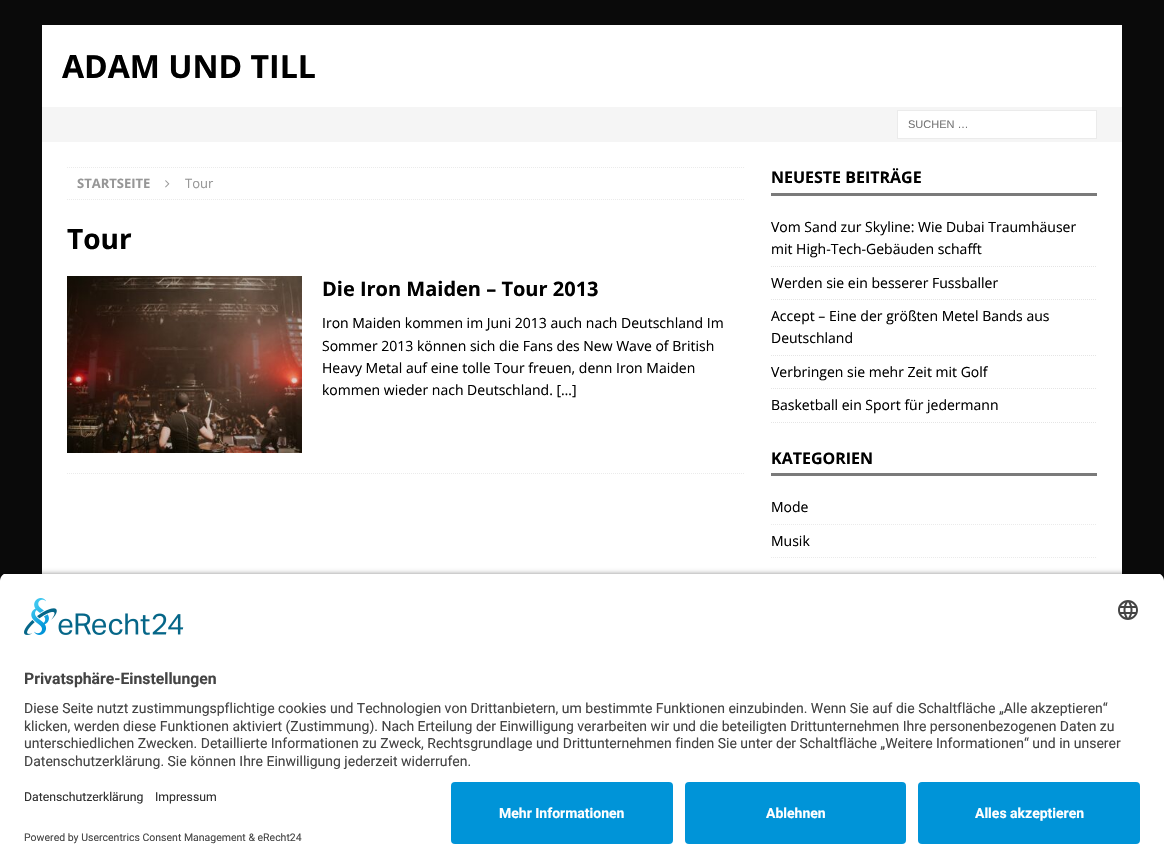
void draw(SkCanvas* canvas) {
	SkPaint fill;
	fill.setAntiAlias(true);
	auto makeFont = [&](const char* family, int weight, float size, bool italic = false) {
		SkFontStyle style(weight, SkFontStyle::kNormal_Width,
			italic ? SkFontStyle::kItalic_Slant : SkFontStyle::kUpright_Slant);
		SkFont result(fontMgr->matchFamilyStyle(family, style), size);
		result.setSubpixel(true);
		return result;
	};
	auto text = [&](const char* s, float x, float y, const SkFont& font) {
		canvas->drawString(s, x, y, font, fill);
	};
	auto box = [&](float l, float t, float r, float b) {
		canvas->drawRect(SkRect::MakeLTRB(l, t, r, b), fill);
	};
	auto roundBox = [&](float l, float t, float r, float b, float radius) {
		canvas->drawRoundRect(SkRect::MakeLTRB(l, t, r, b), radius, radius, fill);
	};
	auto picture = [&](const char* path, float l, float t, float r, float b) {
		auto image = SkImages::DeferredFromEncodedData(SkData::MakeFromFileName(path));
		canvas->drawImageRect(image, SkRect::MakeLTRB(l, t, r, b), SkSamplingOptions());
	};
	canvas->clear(0xFF0A0A0A);
	fill.setColor(0xFFFFFFFF);
	box(42, 25, 1122, 107);
	fill.setColor(0xFFF5F5F5);
	box(42, 107, 1122, 142);
	fill.setColor(0xFFFFFFFF);
	canvas->drawRect(SkRect::MakeLTRB(897.5f, 110.5f, 1096.5f, 138.5f), fill);
	fill.setStyle(SkPaint::kStroke_Style);
	fill.setStrokeWidth(1);
	fill.setColor(0xFFEBEBEB);
	canvas->drawRect(SkRect::MakeLTRB(897.5f, 110.5f, 1096.5f, 138.5f), fill);
	fill.setStyle(SkPaint::kFill_Style);
	fill.setColor(0xFFFFFFFF);
	box(42, 142, 1122, 574);
	fill.setStyle(SkPaint::kStroke_Style);
	fill.setColor(0xFFEBEBEB);
	fill.setPathEffect(SkDashPathEffect::Make({{1, 1}}, 0));
	canvas->drawPath(SkPathBuilder().moveTo(67, 167.5f).lineTo(745, 167.5f).detach(), fill);
	fill.setPathEffect(nullptr);
	fill.setPathEffect(SkDashPathEffect::Make({{1, 1}}, 0));
	canvas->drawPath(SkPathBuilder().moveTo(67, 199.5f).lineTo(745, 199.5f).detach(), fill);
	fill.setPathEffect(nullptr);
	picture("image0.png", 165, 180, 170, 188);
	fill.setPathEffect(SkDashPathEffect::Make({{1, 1}}, 0));
	canvas->drawPath(SkPathBuilder().moveTo(67, 473.5f).lineTo(745, 473.5f).detach(), fill);
	fill.setPathEffect(nullptr);
	picture("image1.png", 67, 276, 302, 453);
	fill.setStyle(SkPaint::kFill_Style);
	fill.setColor(0xFF7A7A7A);
	box(771, 193, 1097, 196);
	fill.setStyle(SkPaint::kStroke_Style);
	fill.setColor(0xFFE5E5E5);
	fill.setPathEffect(SkDashPathEffect::Make({{1, 1}}, 0));
	canvas->drawPath(SkPathBuilder().moveTo(771, 266.5f).lineTo(1097, 266.5f).detach(), fill);
	fill.setPathEffect(nullptr);
	fill.setPathEffect(SkDashPathEffect::Make({{1, 1}}, 0));
	canvas->drawPath(SkPathBuilder().moveTo(771, 299.5f).lineTo(1097, 299.5f).detach(), fill);
	fill.setPathEffect(nullptr);
	fill.setPathEffect(SkDashPathEffect::Make({{1, 1}}, 0));
	canvas->drawPath(SkPathBuilder().moveTo(771, 355.5f).lineTo(1097, 355.5f).detach(), fill);
	fill.setPathEffect(nullptr);
	fill.setPathEffect(SkDashPathEffect::Make({{1, 1}}, 0));
	canvas->drawPath(SkPathBuilder().moveTo(771, 388.5f).lineTo(1097, 388.5f).detach(), fill);
	fill.setPathEffect(nullptr);
	fill.setPathEffect(SkDashPathEffect::Make({{1, 1}}, 0));
	canvas->drawPath(SkPathBuilder().moveTo(771, 422.5f).lineTo(1097, 422.5f).detach(), fill);
	fill.setPathEffect(nullptr);
	fill.setStyle(SkPaint::kFill_Style);
	fill.setColor(0xFF7A7A7A);
	box(771, 473, 1097, 476);
	fill.setStyle(SkPaint::kStroke_Style);
	fill.setColor(0xFFEBEBEB);
	fill.setPathEffect(SkDashPathEffect::Make({{1, 1}}, 0));
	canvas->drawPath(SkPathBuilder().moveTo(771, 524.5f).lineTo(1097, 524.5f).detach(), fill);
	fill.setPathEffect(nullptr);
	fill.setPathEffect(SkDashPathEffect::Make({{1, 1}}, 0));
	canvas->drawPath(SkPathBuilder().moveTo(771, 557.5f).lineTo(1097, 557.5f).detach(), fill);
	fill.setPathEffect(nullptr);
	fill.setStyle(SkPaint::kFill_Style);
	fill.setColor(0xCC000000);
	fill.setMaskFilter(SkMaskFilter::MakeBlur(kNormal_SkBlurStyle, 3.5f));
	canvas->drawRoundRect(SkRect::MakeLTRB(0, 576, 1164, 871), 8, 8, fill);
	fill.setMaskFilter(nullptr);
	canvas->save();
	canvas->clipPath(SkPathBuilder().moveTo(8, 573).lineTo(1156, 573).cubicTo(1160.5f, 573, 1164, 576.5f, 1164, 581).lineTo(1164, 774).lineTo(0, 774).lineTo(0, 581).cubicTo(0, 576.5f, 3.5f, 573, 8, 573).close().detach(), true);
	fill.setColor(0xFFFFFFFF);
	box(0, 574, 1164, 774);
	canvas->restore();
	picture("image2.png", 24, 598, 184, 635);
	picture("image3.png", 1118, 600, 1138, 620);
	box(0, 774, 1164, 868);
	fill.setColor(0xFF0094D8);
	roundBox(451, 782, 673, 844, 4);
	roundBox(685, 782, 906, 844, 4);
	roundBox(918, 782, 1140, 844, 4);
	auto font1 = makeFont("Open Sans", 700, 32);
	fill.setColor(0xFF000000);
	text("ADAM UND TILL", 62, 78, font1);
	auto font2 = makeFont("Liberation Sans", 400, 11);
	fill.setColor(0xFF757575);
	text("SUCHEN …", 908, 128, font2);
	auto font3 = makeFont("Open Sans", 700, 13);
	fill.setColor(0xFF979797);
	text("STARTSEITE", 77, 188, font3);
	auto font4 = makeFont("Open Sans", 400, 13);
	text("Tour", 185, 188, font4);
	auto font5 = makeFont("Open Sans", 700, 28);
	fill.setColor(0xFF000000);
	text("Tour", 67, 249, font5);
	auto font6 = makeFont("Open Sans", 700, 20);
	text("Die Iron Maiden – Tour 2013", 322, 296, font6);
	auto font7 = makeFont("Open Sans", 400, 14);
	text("Iron Maiden kommen im Juni 2013 auch nach Deutschland Im", 322, 328, font7);
	text("Sommer 2013 können sich die Fans des New Wave of British", 322, 351, font7);
	text("Heavy Metal auf eine tolle Tour freuen, denn Iron Maiden", 322, 373, font7);
	text("kommen wieder nach Deutschland. […]", 322, 395, font7);
	auto font8 = makeFont("Open Sans", 700, 16);
	text("NEUESTE BEITRÄGE", 771, 183, font8);
	text("Vom Sand zur Skyline: Wie Dubai Traumhäuser", 771, 232, font7);
	text("mit High-Tech-Gebäuden schafft", 771, 254, font7);
	text("Werden sie ein besserer Fussballer", 771, 288, font7);
	text("Accept – Eine der größten Metel Bands aus", 771, 321, font7);
	text("Deutschland", 771, 343, font7);
	text("Verbringen sie mehr Zeit mit Golf", 771, 377, font7);
	text("Basketball ein Sport für jedermann", 771, 410, font7);
	text("KATEGORIEN", 771, 464, font8);
	text("Mode", 771, 512, font7);
	text("Musik", 771, 546, font7);
	auto font9 = makeFont("Roboto", 700, 15.75f);
	fill.setColor(0xFF444444);
	text("Privatsphäre-Einstellungen", 24, 684, font9);
	auto font10 = makeFont("Roboto", 400, 14);
	text("Diese Seite nutzt zustimmungspflichtige cookies und Technologien von Drittanbietern, um bestimmte Funktionen einzubinden. Wenn Sie auf die Schaltfläche „Alle akzeptieren“", 24, 713, font10);
	text("klicken, werden diese Funktionen aktiviert (Zustimmung). Nach Erteilung der Einwilligung verarbeiten wir und die beteiligten Drittunternehmen Ihre personenbezogenen Daten zu", 24, 731, font10);
	text("unterschiedlichen Zwecken. Detaillierte Informationen zu Zweck, Rechtsgrundlage und Drittunternehmen finden Sie unter der Schaltfläche „Weitere Informationen“ und in unserer", 24, 748, font10);
	text("Datenschutzerklärung. Sie können Ihre Einwilligung jederzeit widerrufen.", 24, 766, font10);
	auto font11 = makeFont("Roboto", 400, 12.25f);
	fill.setColor(0xFF303030);
	text("Datenschutzerklärung", 24, 801, font11);
	text("Impressum", 155, 801, font11);
	auto font12 = makeFont("Roboto", 400, 10.5f);
	fill.setColor(0xFF444444);
	text("Powered by Usercentrics Consent Management & eRecht24", 24, 841, font12);
	auto font13 = makeFont("Roboto", 700, 14);
	fill.setColor(0xFFFFFFFF);
	text("Mehr Informationen", 499, 818, font13);
	text("Ablehnen", 766, 818, font13);
	text("Alles akzeptieren", 975, 818, font13);
}
